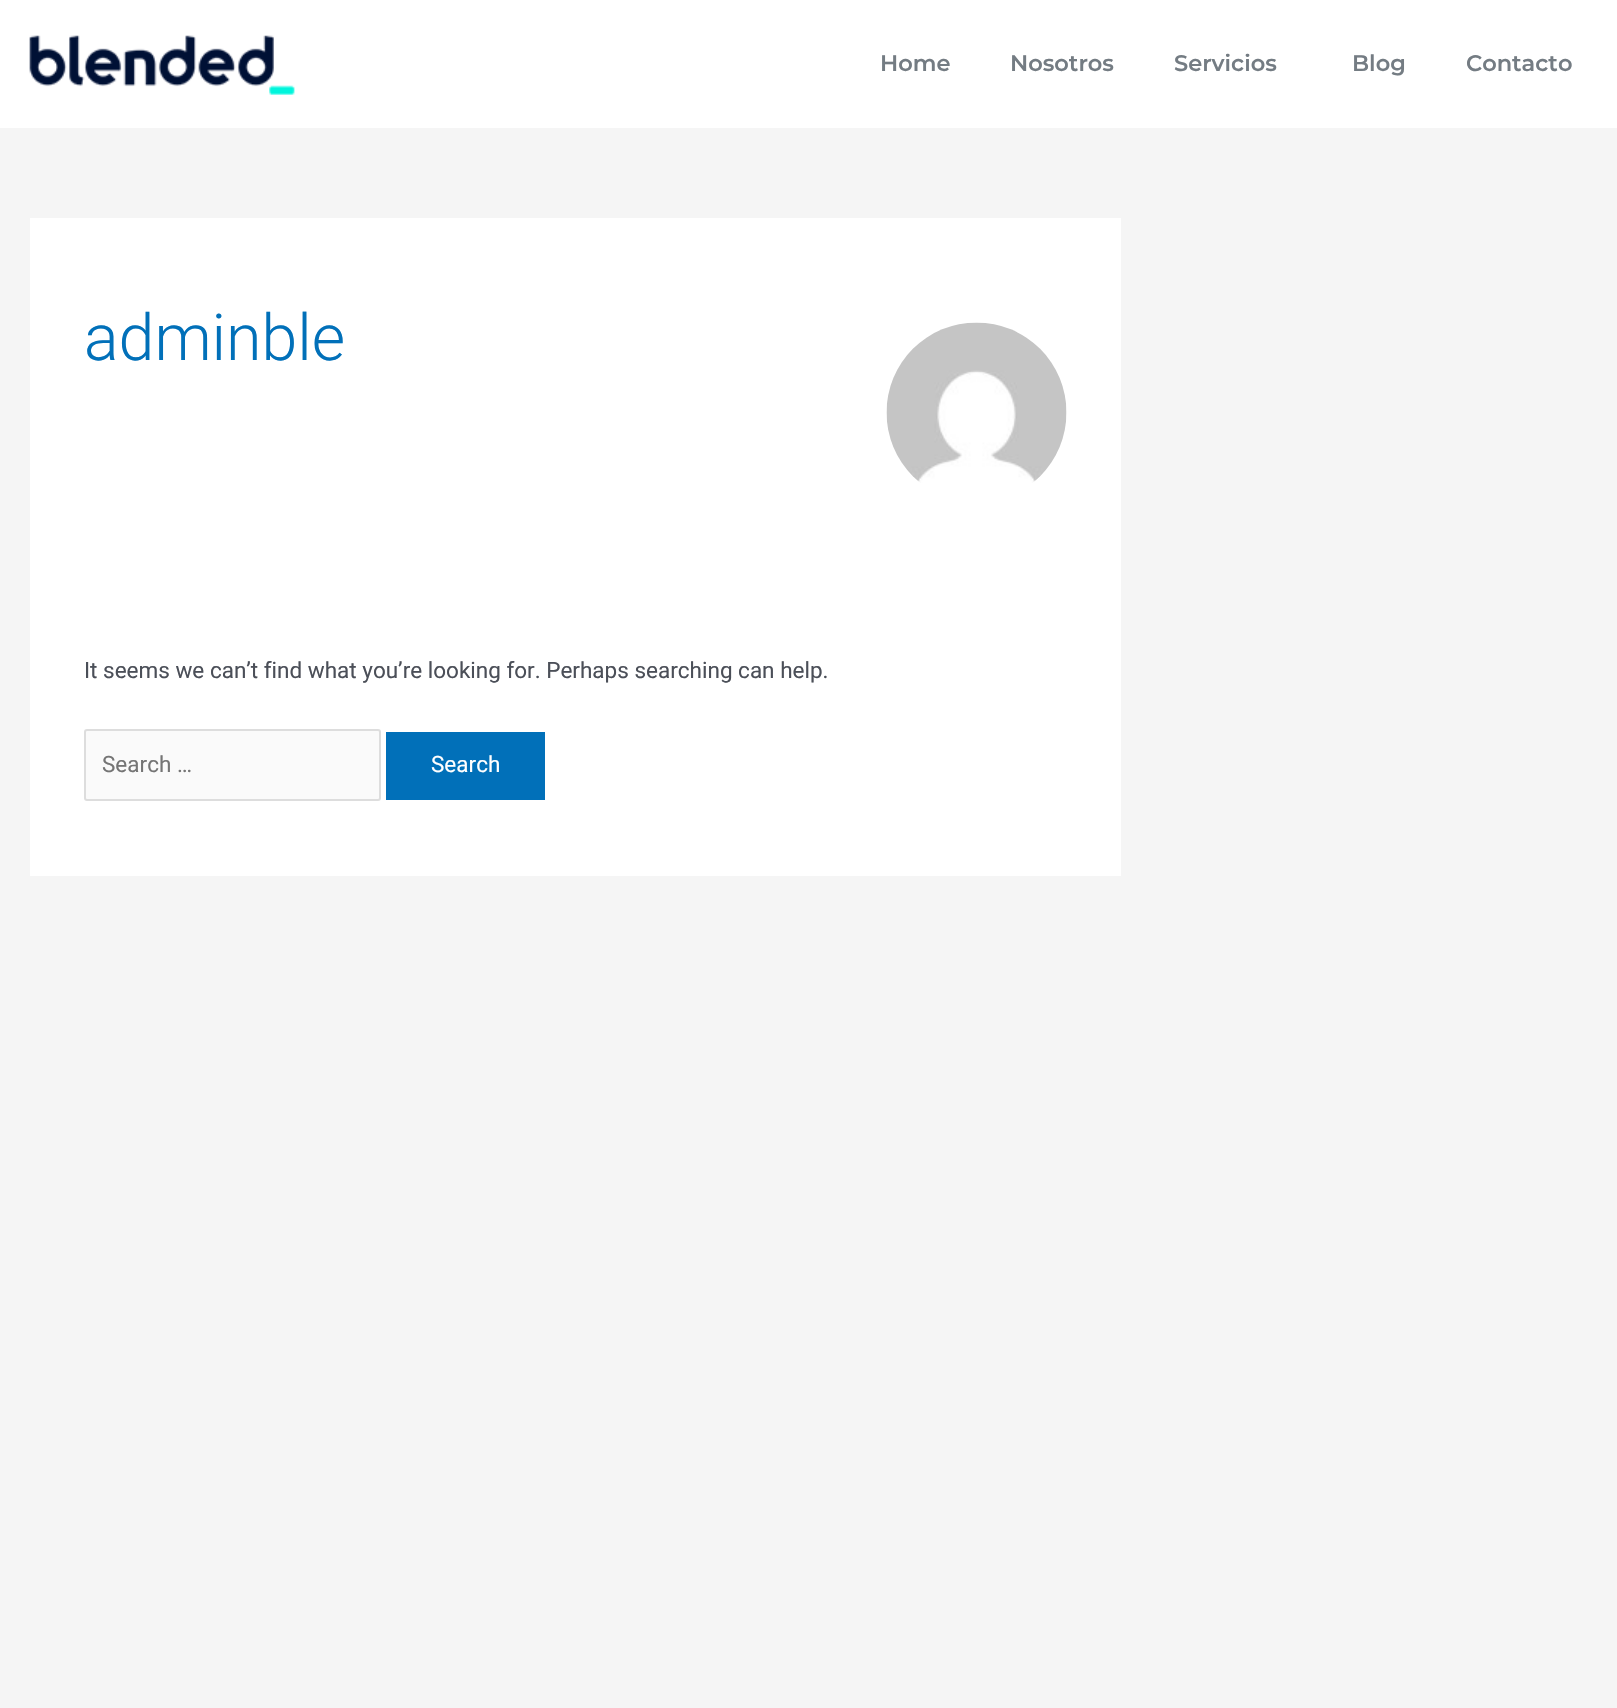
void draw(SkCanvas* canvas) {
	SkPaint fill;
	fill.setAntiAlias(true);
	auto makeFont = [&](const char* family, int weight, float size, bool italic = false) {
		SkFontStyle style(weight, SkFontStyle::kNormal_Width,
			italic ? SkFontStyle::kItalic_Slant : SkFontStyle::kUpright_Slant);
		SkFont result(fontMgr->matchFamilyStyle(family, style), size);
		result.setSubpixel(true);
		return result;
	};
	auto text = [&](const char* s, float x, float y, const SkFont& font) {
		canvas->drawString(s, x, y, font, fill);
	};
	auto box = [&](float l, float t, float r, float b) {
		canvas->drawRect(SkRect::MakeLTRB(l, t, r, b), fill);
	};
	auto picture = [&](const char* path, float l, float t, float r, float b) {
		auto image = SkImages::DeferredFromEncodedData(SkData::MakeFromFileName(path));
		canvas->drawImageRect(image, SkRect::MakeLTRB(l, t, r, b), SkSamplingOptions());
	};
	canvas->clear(0xFFF5F5F5);
	fill.setColor(0xFFFFFFFF);
	box(0, 0, 1617, 128);
	picture("image0.png", 29, 35, 295, 95);
	box(30, 218, 1121, 876);
	picture("image1.png", 886, 322, 1067, 483);
	fill.setColor(0xFFFAFAFA);
	canvas->drawRoundRect(SkRect::MakeLTRB(85, 730, 380, 800), 2, 2, fill);
	fill.setStyle(SkPaint::kStroke_Style);
	fill.setStrokeWidth(2);
	fill.setColor(0xFFDDDDDD);
	canvas->drawRoundRect(SkRect::MakeLTRB(85, 730, 380, 800), 2, 2, fill);
	fill.setStyle(SkPaint::kFill_Style);
	fill.setColor(0xFF0170B9);
	box(386, 732, 545, 800);
	auto font1 = makeFont("Montserrat", 600, 22.5f);
	fill.setColor(0xFF747C83);
	text("Home", 880, 71, font1);
	text("Nosotros", 1010, 71, font1);
	text("Servicios", 1174, 71, font1);
	text("Blog", 1352, 71, font1);
	text("Contacto", 1466, 71, font1);
	auto font2 = makeFont("Roboto", 300, 64.5f);
	fill.setColor(0xFF0170B9);
	text("adminble", 84, 360, font2);
	auto font3 = makeFont("Roboto", 400, 22.5f);
	fill.setColor(0xFF4B4F58);
	text("It seems we can’t find what you’re looking for. Perhaps searching can help.", 84, 678, font3);
	fill.setColor(0xFF757575);
	text("Search …", 102, 772, font3);
	fill.setColor(0xFFFFFFFF);
	text("Search", 431, 772, font3);
}
